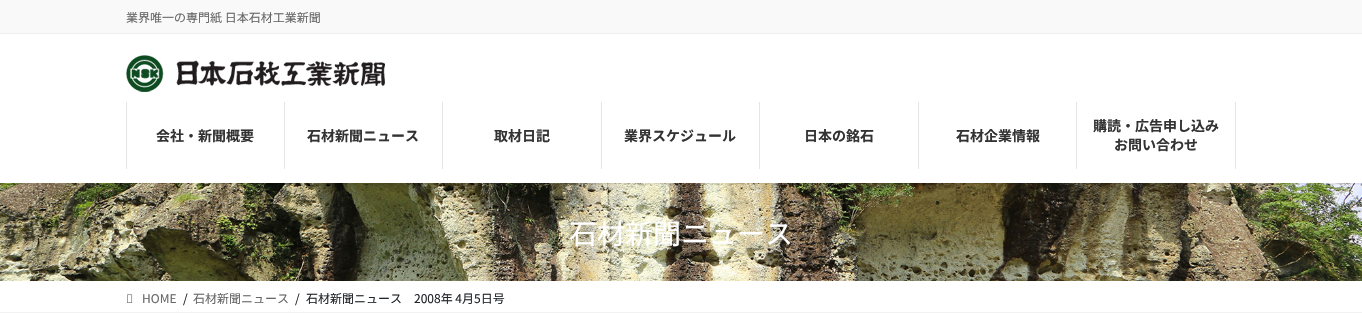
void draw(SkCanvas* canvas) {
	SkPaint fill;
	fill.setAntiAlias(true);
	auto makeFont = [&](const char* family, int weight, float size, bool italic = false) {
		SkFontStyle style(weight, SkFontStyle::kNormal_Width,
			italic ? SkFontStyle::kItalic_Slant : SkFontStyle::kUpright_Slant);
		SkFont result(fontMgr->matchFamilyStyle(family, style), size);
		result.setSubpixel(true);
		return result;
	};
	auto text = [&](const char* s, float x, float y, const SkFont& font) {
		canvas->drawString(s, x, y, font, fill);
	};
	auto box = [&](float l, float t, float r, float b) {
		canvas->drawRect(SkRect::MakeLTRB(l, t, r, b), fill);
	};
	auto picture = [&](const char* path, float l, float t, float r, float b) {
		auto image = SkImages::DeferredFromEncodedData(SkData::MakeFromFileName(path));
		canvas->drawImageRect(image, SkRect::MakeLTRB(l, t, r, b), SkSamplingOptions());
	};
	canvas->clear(0xFFFFFFFF);
	picture("image1.png", 0, 183, 1362, 281);
	canvas->save();
	canvas->clipRect(SkRect::MakeLTRB(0, 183, 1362, 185));
	fill.setColor(0x1A000000);
	fill.setMaskFilter(SkMaskFilter::MakeBlur(kNormal_SkBlurStyle, 1.5f));
	canvas->drawRect(SkRect::MakeLTRB(0, -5, 1362, 184), fill);
	fill.setMaskFilter(nullptr);
	canvas->restore();
	fill.setColor(0xFFF9F9F9);
	box(0, 0, 1362, 33);
	fill.setColor(0xFFEFEFEF);
	box(0, 33, 1362, 34);
	picture("image0.png", 126, 55, 385, 92);
	fill.setColor(0xFFE5E5E5);
	box(284, 102, 285, 169);
	box(126, 102, 127, 169);
	box(442, 102, 443, 169);
	box(601, 102, 602, 169);
	box(759, 102, 760, 169);
	box(918, 102, 919, 169);
	box(1076, 102, 1077, 169);
	box(1235, 102, 1236, 169);
	fill.setColor(0xFFF2F2F2);
	box(0, 312, 1362, 313);
	picture("image2.png", 127, 294, 133, 303);
	auto font1 = makeFont("Noto Sans JP", 400, 12);
	fill.setColor(0xFF666666);
	text("業界唯一の専門紙 日本石材工業新聞", 126, 22, font1);
	auto font2 = makeFont("Noto Sans JP", 700, 14);
	fill.setColor(0xFF333333);
	text("会社・新聞概要", 156, 141, font2);
	text("石材新聞ニュース", 307, 141, font2);
	text("取材日記", 494, 141, font2);
	text("業界スケジュール", 624, 141, font2);
	text("日本の銘石", 804, 141, font2);
	text("石材企業情報", 956, 141, font2);
	text("購読・広告申し込み", 1093, 131, font2);
	text("お問い合わせ", 1114, 150, font2);
	auto font3 = makeFont("Noto Sans JP", 400, 28);
	fill.setColor(0xFFFFFFFF);
	text("石材新聞ニュース", 569, 244, font3);
	fill.setColor(0xFF666666);
	text("HOME", 142, 303, font1);
	fill.setColor(0xFF212529);
	text("/", 183, 303, font1);
	fill.setColor(0xFF666666);
	text("石材新聞ニュース", 193, 303, font1);
	fill.setColor(0xFF212529);
	text("/", 295, 303, font1);
	text("石材新聞ニュース　2008年 4月5日号", 306, 303, font1);
}
